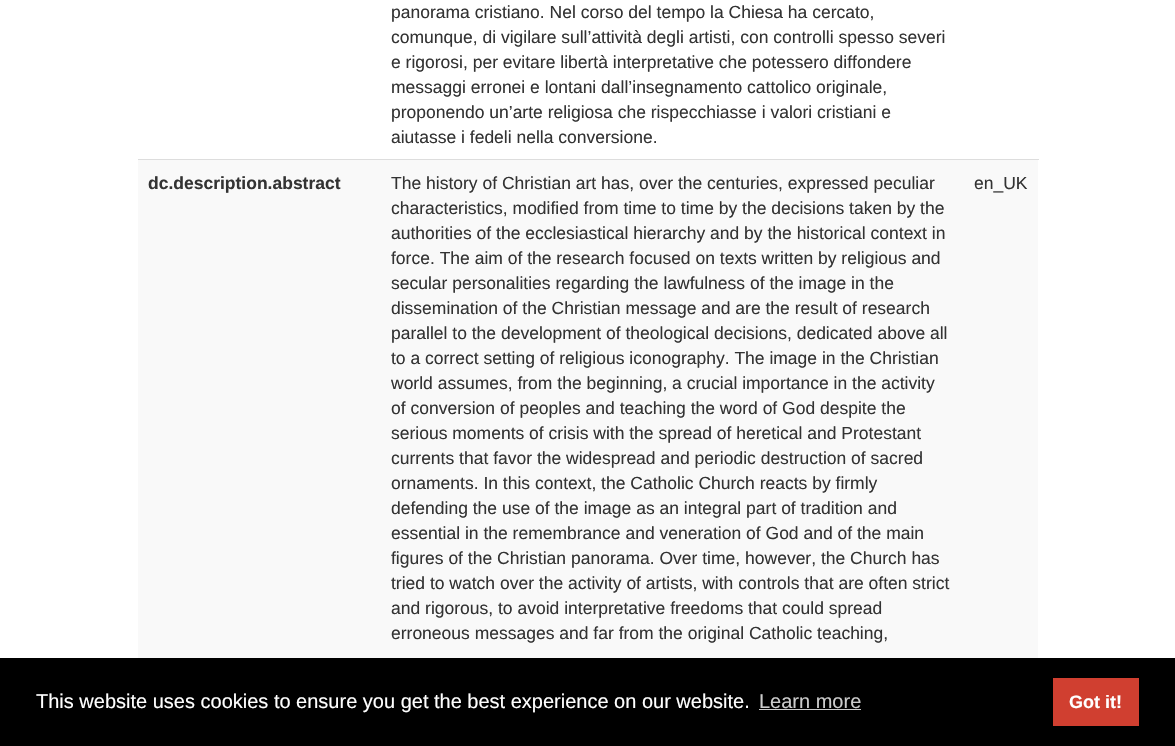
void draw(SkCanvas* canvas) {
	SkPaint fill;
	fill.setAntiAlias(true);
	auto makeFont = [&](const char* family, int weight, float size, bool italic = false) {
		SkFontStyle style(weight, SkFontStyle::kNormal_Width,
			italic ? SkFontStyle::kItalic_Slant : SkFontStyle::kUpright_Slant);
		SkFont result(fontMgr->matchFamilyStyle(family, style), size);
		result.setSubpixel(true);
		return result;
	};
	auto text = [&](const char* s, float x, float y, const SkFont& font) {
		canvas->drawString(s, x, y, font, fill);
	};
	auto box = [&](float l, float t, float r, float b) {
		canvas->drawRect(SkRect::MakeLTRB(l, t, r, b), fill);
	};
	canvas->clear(0xFFFFFFFF);
	fill.setColor(0xFFF9F9F9);
	box(138, 160, 1038, 658);
	fill.setColor(0xFFDDDDDD);
	box(138, 159, 1039, 160);
	fill.setColor(0xFF000000);
	box(0, 658, 1175, 746);
	fill.setColor(0xFFCCCCCC);
	box(759, 709, 861, 710);
	fill.setColor(0xFFD03F30);
	box(1053, 678, 1139, 726);
	auto font1 = makeFont("Liberation Sans", 400, 17.5f);
	fill.setColor(0xFF333333);
	text("panorama cristiano. Nel corso del tempo la Chiesa ha cercato,", 391, 18, font1);
	text("comunque, di vigilare sull’attività degli artisti, con controlli spesso severi", 391, 43, font1);
	text("e rigorosi, per evitare libertà interpretative che potessero diffondere", 391, 68, font1);
	text("messaggi erronei e lontani dall’insegnamento cattolico originale,", 391, 93, font1);
	text("proponendo un’arte religiosa che rispecchiasse i valori cristiani e", 391, 118, font1);
	text("aiutasse i fedeli nella conversione.", 391, 143, font1);
	auto font2 = makeFont("Liberation Sans", 700, 17.5f);
	text("dc.description.abstract", 148, 189, font2);
	text("The history of Christian art has, over the centuries, expressed peculiar", 391, 189, font1);
	text("characteristics, modified from time to time by the decisions taken by the", 391, 214, font1);
	text("authorities of the ecclesiastical hierarchy and by the historical context in", 391, 239, font1);
	text("force. The aim of the research focused on texts written by religious and", 391, 264, font1);
	text("secular personalities regarding the lawfulness of the image in the", 391, 289, font1);
	text("dissemination of the Christian message and are the result of research", 391, 314, font1);
	text("parallel to the development of theological decisions, dedicated above all", 391, 339, font1);
	text("to a correct setting of religious iconography. The image in the Christian", 391, 364, font1);
	text("world assumes, from the beginning, a crucial importance in the activity", 391, 389, font1);
	text("of conversion of peoples and teaching the word of God despite the", 391, 414, font1);
	text("serious moments of crisis with the spread of heretical and Protestant", 391, 439, font1);
	text("currents that favor the widespread and periodic destruction of sacred", 391, 464, font1);
	text("ornaments. In this context, the Catholic Church reacts by firmly", 391, 489, font1);
	text("defending the use of the image as an integral part of tradition and", 391, 514, font1);
	text("essential in the remembrance and veneration of God and of the main", 391, 539, font1);
	text("figures of the Christian panorama. Over time, however, the Church has", 391, 564, font1);
	text("tried to watch over the activity of artists, with controls that are often strict", 391, 589, font1);
	text("and rigorous, to avoid interpretative freedoms that could spread", 391, 614, font1);
	text("erroneous messages and far from the original Catholic teaching,", 391, 639, font1);
	text("en_UK", 974, 189, font1);
	auto font3 = makeFont("Liberation Sans", 400, 20);
	fill.setColor(0xFFFFFFFF);
	text("This website uses cookies to ensure you get the best experience on our website.", 36, 708, font3);
	fill.setColor(0xFFCCCCCC);
	text("Learn more", 759, 708, font3);
	auto font4 = makeFont("Liberation Sans", 700, 18);
	fill.setColor(0xFFFFFFFF);
	text("Got it!", 1069, 708, font4);
}
